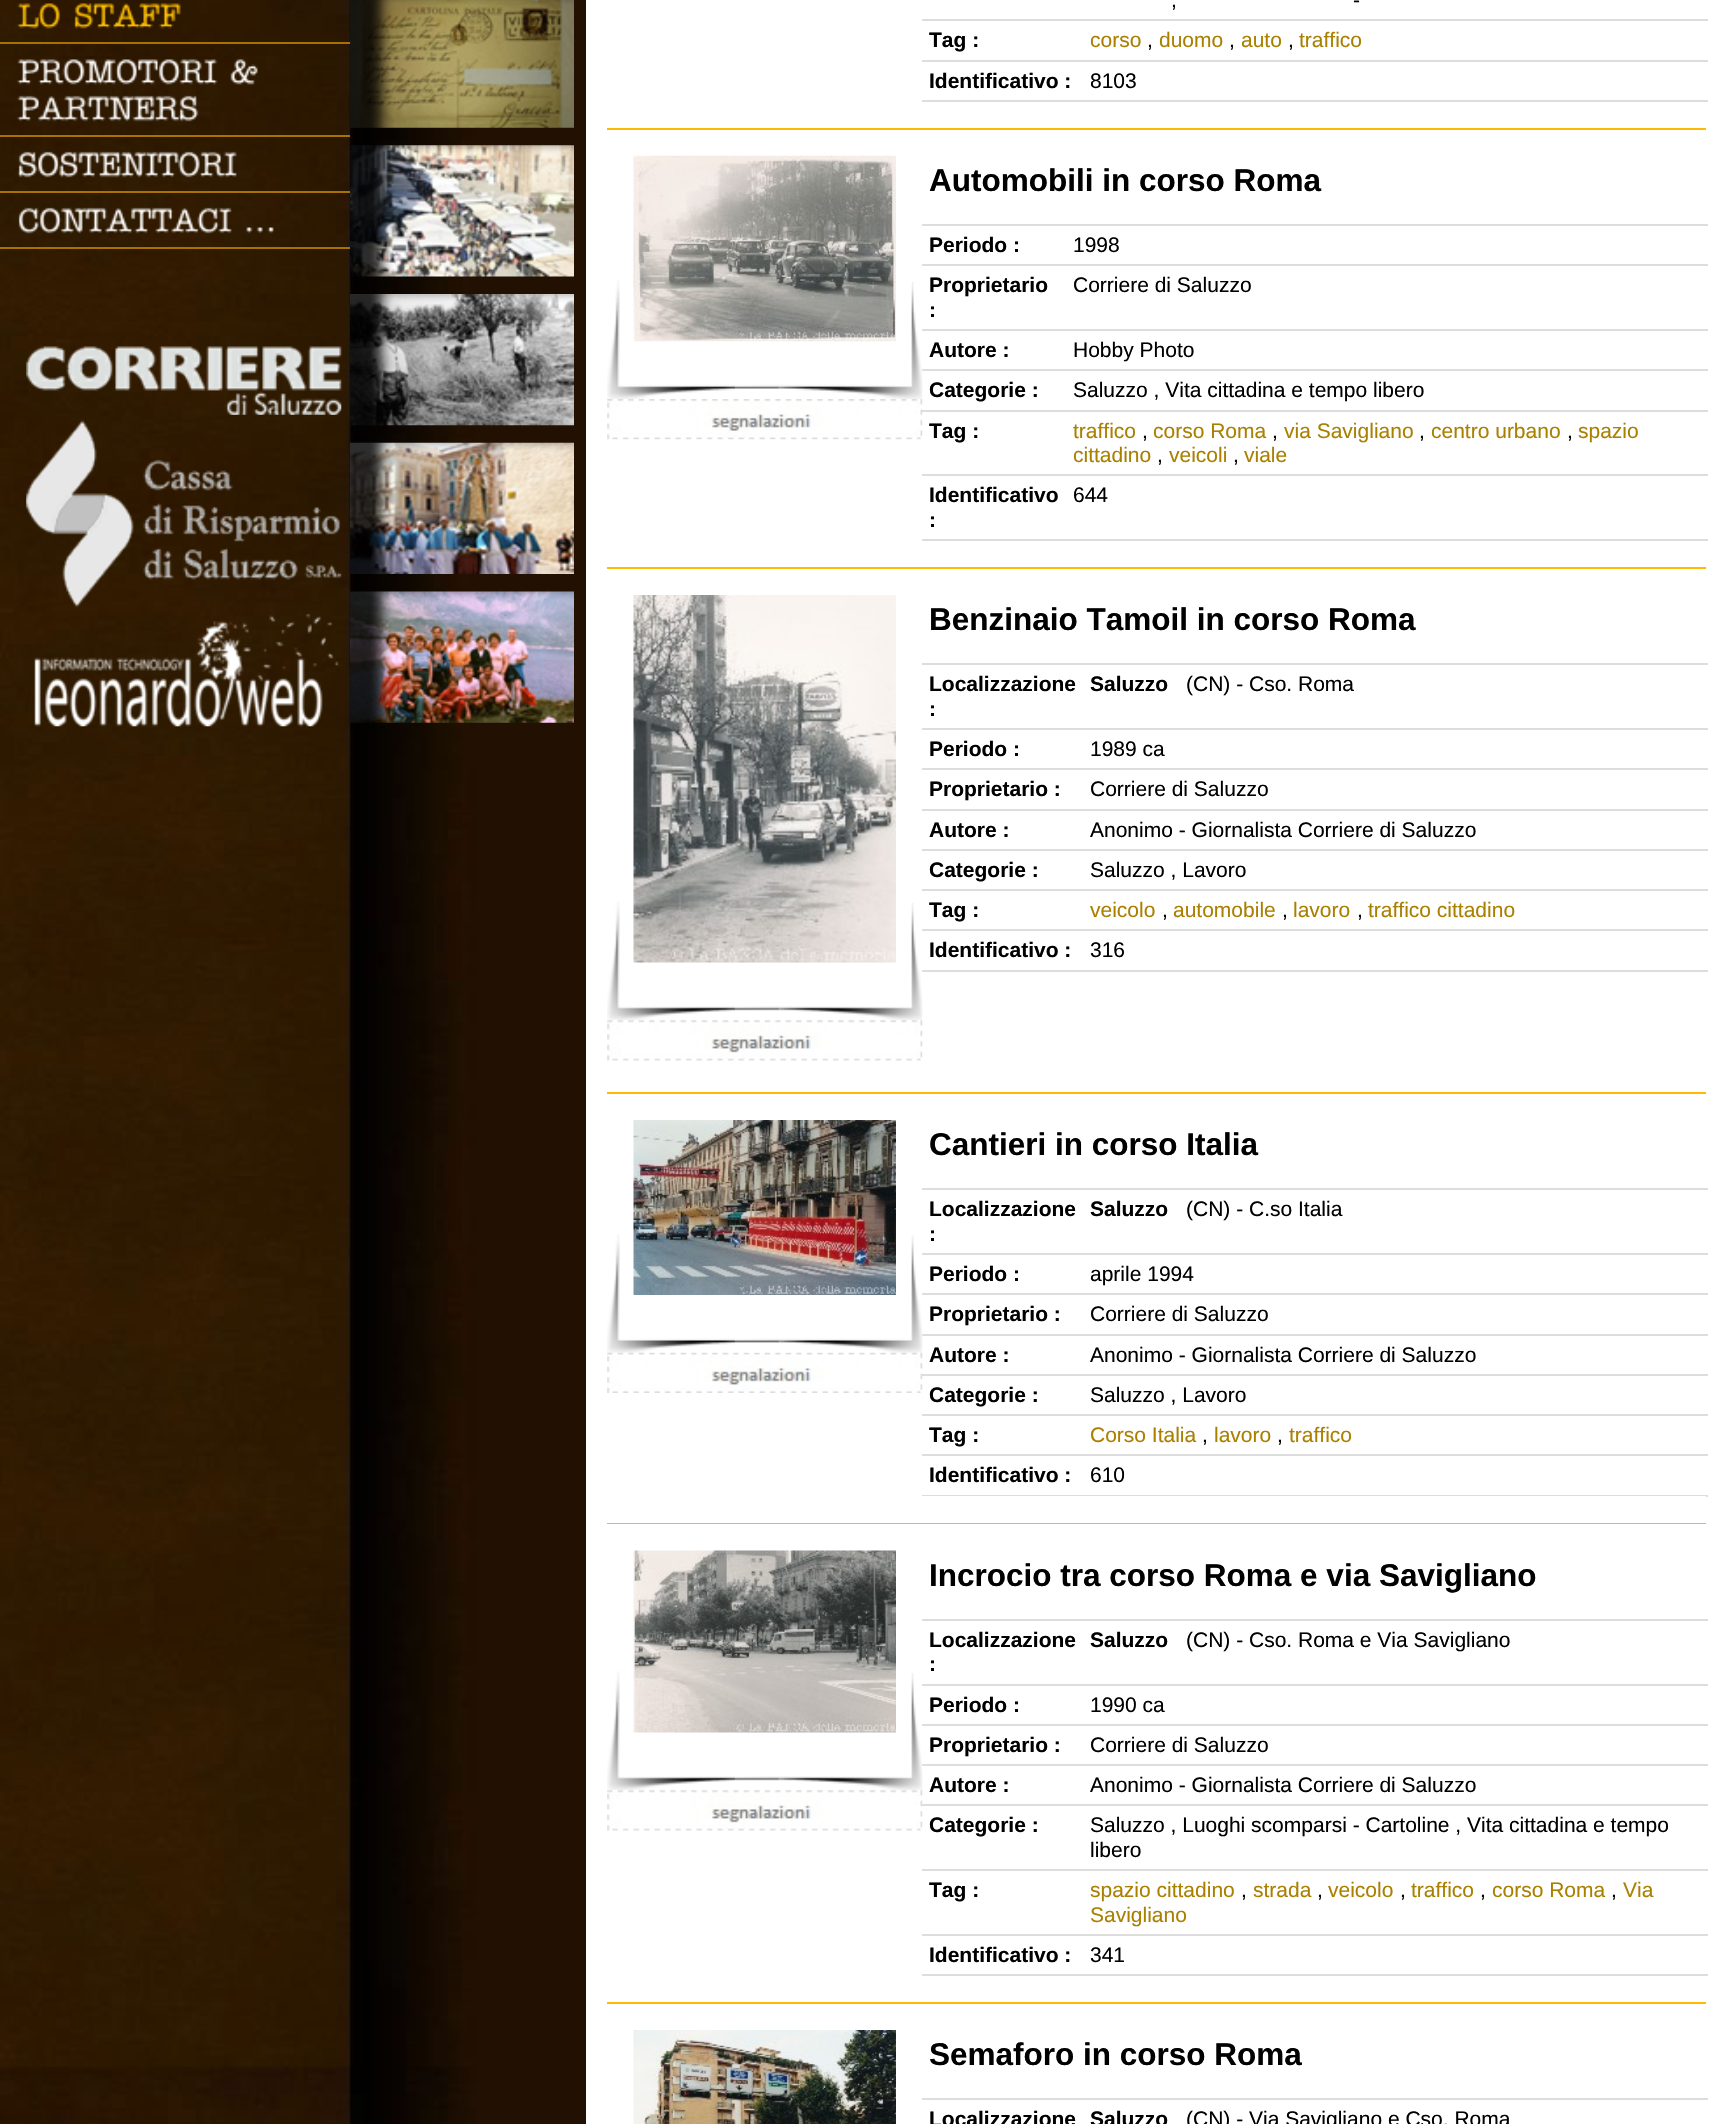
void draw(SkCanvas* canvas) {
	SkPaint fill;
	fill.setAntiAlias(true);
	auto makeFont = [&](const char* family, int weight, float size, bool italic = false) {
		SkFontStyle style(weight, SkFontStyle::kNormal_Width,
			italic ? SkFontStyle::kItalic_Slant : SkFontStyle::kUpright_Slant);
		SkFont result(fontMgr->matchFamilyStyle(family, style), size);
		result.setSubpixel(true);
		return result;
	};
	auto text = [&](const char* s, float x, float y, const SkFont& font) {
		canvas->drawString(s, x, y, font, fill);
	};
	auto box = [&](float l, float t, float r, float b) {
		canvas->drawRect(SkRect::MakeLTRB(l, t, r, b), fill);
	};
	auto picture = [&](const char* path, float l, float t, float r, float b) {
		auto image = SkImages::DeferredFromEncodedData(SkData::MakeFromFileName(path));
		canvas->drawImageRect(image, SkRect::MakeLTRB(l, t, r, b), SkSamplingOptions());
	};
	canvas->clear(0xFFFFFFFF);
	picture("image0.png", 0, 0, 586, 2124);
	fill.setColor(0xFFA77200);
	box(0, 42, 350, 44);
	picture("image1.png", 17, 3, 60, 29);
	picture("image2.png", 73, 3, 181, 29);
	box(0, 135, 350, 137);
	picture("image3.png", 17, 59, 218, 85);
	picture("image4.png", 230, 59, 258, 85);
	picture("image5.png", 17, 95, 199, 122);
	box(0, 191, 350, 193);
	picture("image6.png", 17, 151, 237, 178);
	box(0, 247, 350, 249);
	picture("image7.png", 18, 207, 232, 234);
	picture("image8.png", 246, 227, 274, 234);
	picture("image9.png", 26, 346, 342, 415);
	picture("image10.png", 26, 420, 342, 608);
	picture("image11.png", 34, 614, 339, 727);
	picture("image12.png", 350, 0, 574, 128);
	picture("image13.png", 350, 145, 574, 277);
	picture("image14.png", 350, 294, 574, 426);
	picture("image15.png", 350, 442, 574, 574);
	picture("image16.png", 350, 591, 574, 723);
	fill.setColor(0xFFDDDDDD);
	box(922, 19, 1708, 21);
	box(922, 60, 1708, 62);
	box(922, 100, 1708, 102);
	fill.setColor(0xFFFFB900);
	box(607, 128, 1706, 130);
	picture("image17.png", 607, 280, 735, 399);
	fill.setColor(0xFFDDDDDD);
	box(922, 329, 1708, 331);
	box(922, 369, 1708, 371);
	picture("image18.png", 735, 282, 923, 399);
	picture("image19.png", 633, 155, 896, 342);
	box(922, 410, 1708, 412);
	picture("image20.png", 607, 399, 923, 440);
	box(922, 224, 1708, 226);
	box(922, 264, 1708, 266);
	box(922, 474, 1708, 476);
	box(922, 539, 1708, 541);
	fill.setColor(0xFFFFB900);
	box(607, 567, 1706, 569);
	picture("image21.png", 607, 901, 815, 1021);
	fill.setColor(0xFFDDDDDD);
	box(922, 929, 1708, 931);
	box(922, 970, 1708, 972);
	picture("image22.png", 735, 903, 923, 1021);
	picture("image23.png", 633, 595, 896, 963);
	picture("image24.png", 607, 1020, 923, 1061);
	box(922, 663, 1708, 665);
	box(922, 728, 1708, 730);
	box(922, 768, 1708, 770);
	box(922, 809, 1708, 811);
	box(922, 849, 1708, 851);
	box(922, 889, 1708, 891);
	fill.setColor(0xFFFFB900);
	box(607, 1092, 1706, 1094);
	picture("image25.png", 607, 1234, 816, 1353);
	fill.setColor(0xFFDDDDDD);
	box(922, 1253, 1708, 1255);
	box(922, 1293, 1708, 1295);
	box(922, 1334, 1708, 1336);
	picture("image26.png", 735, 1235, 923, 1353);
	picture("image27.png", 633, 1120, 896, 1295);
	box(922, 1374, 1708, 1376);
	picture("image28.png", 607, 1352, 923, 1393);
	box(922, 1188, 1708, 1190);
	box(922, 1414, 1708, 1416);
	box(922, 1454, 1708, 1456);
	box(1083, 1495, 1708, 1497);
	box(922, 1495, 1085, 1496);
	fill.setColor(0xFFFFFFFF);
	box(1083, 1496, 1706, 1497);
	fill.setColor(0xFFFFB900);
	box(607, 1523, 1706, 1524);
	picture("image21.png", 607, 1671, 815, 1791);
	fill.setColor(0xFFDDDDDD);
	box(922, 1684, 1708, 1686);
	box(922, 1724, 1708, 1726);
	box(922, 1764, 1708, 1766);
	picture("image29.png", 735, 1673, 923, 1791);
	picture("image30.png", 633, 1550, 896, 1733);
	box(922, 1804, 1708, 1806);
	picture("image31.png", 607, 1790, 923, 1831);
	box(922, 1619, 1708, 1621);
	box(922, 1869, 1708, 1871);
	box(922, 1934, 1708, 1936);
	box(922, 1974, 1708, 1976);
	fill.setColor(0xFFFFB900);
	box(607, 2002, 1706, 2004);
	picture("image32.png", 633, 2030, 896, 2124);
	fill.setColor(0xFFDDDDDD);
	box(922, 2098, 1708, 2100);
	auto font1 = makeFont("Liberation Sans", 400, 21);
	fill.setColor(0xFF000000);
	text("-", 1353, 7, font1);
	text(",", 1171, 7, font1);
	auto font2 = makeFont("Liberation Sans", 700, 21);
	text("Tag :", 929, 47, font2);
	fill.setColor(0xFFAA8000);
	text("corso", 1090, 47, font1);
	fill.setColor(0xFF000000);
	text(",", 1147, 47, font1);
	fill.setColor(0xFFAA8000);
	text("duomo", 1159, 47, font1);
	fill.setColor(0xFF000000);
	text(",", 1229, 47, font1);
	fill.setColor(0xFFAA8000);
	text("auto", 1241, 47, font1);
	fill.setColor(0xFF000000);
	text(",", 1288, 47, font1);
	fill.setColor(0xFFAA8000);
	text("traffico", 1299, 47, font1);
	fill.setColor(0xFF000000);
	text("Identificativo :", 929, 88, font2);
	text("8103", 1090, 88, font1);
	auto font3 = makeFont("Liberation Sans", 700, 31.5f);
	text("Automobili in corso Roma", 929, 191, font3);
	text("Periodo :", 929, 252, font2);
	text("1998", 1073, 252, font1);
	text("Proprietario", 929, 292, font2);
	text(":", 929, 317, font2);
	text("Corriere di Saluzzo", 1073, 292, font1);
	text("Autore :", 929, 357, font2);
	text("Hobby Photo", 1073, 357, font1);
	text("Categorie :", 929, 397, font2);
	text("Saluzzo , Vita cittadina e tempo libero", 1073, 397, font1);
	text("Tag :", 929, 438, font2);
	fill.setColor(0xFFAA8000);
	text("traffico", 1073, 438, font1);
	fill.setColor(0xFF000000);
	text(",", 1142, 438, font1);
	fill.setColor(0xFFAA8000);
	text("corso Roma", 1153, 438, font1);
	fill.setColor(0xFF000000);
	text(",", 1272, 438, font1);
	fill.setColor(0xFFAA8000);
	text("via Savigliano", 1284, 438, font1);
	fill.setColor(0xFF000000);
	text(",", 1419, 438, font1);
	fill.setColor(0xFFAA8000);
	text("centro urbano", 1431, 438, font1);
	fill.setColor(0xFF000000);
	text(",", 1567, 438, font1);
	fill.setColor(0xFFAA8000);
	text("spazio", 1578, 438, font1);
	text("cittadino", 1073, 462, font1);
	fill.setColor(0xFF000000);
	text(",", 1157, 462, font1);
	fill.setColor(0xFFAA8000);
	text("veicoli", 1169, 462, font1);
	fill.setColor(0xFF000000);
	text(",", 1233, 462, font1);
	fill.setColor(0xFFAA8000);
	text("viale", 1244, 462, font1);
	fill.setColor(0xFF000000);
	text("Identificativo", 929, 502, font2);
	text(":", 929, 527, font2);
	text("644", 1073, 502, font1);
	text("Benzinaio Tamoil in corso Roma", 929, 630, font3);
	text("Localizzazione", 929, 691, font2);
	text(":", 929, 716, font2);
	text("Saluzzo", 1090, 691, font2);
	text("(CN) - Cso. Roma", 1186, 691, font1);
	text("Periodo :", 929, 756, font2);
	text("1989 ca", 1090, 756, font1);
	text("Proprietario :", 929, 796, font2);
	text("Corriere di Saluzzo", 1090, 796, font1);
	text("Autore :", 929, 837, font2);
	text("Anonimo - Giornalista Corriere di Saluzzo", 1090, 837, font1);
	text("Categorie :", 929, 877, font2);
	text("Saluzzo , Lavoro", 1090, 877, font1);
	text("Tag :", 929, 917, font2);
	fill.setColor(0xFFAA8000);
	text("veicolo", 1090, 917, font1);
	fill.setColor(0xFF000000);
	text(",", 1162, 917, font1);
	fill.setColor(0xFFAA8000);
	text("automobile", 1173, 917, font1);
	fill.setColor(0xFF000000);
	text(",", 1282, 917, font1);
	fill.setColor(0xFFAA8000);
	text("lavoro", 1293, 917, font1);
	fill.setColor(0xFF000000);
	text(",", 1357, 917, font1);
	fill.setColor(0xFFAA8000);
	text("traffico cittadino", 1368, 917, font1);
	fill.setColor(0xFF000000);
	text("Identificativo :", 929, 957, font2);
	text("316", 1090, 957, font1);
	text("Cantieri in corso Italia", 929, 1155, font3);
	text("Localizzazione", 929, 1216, font2);
	text(":", 929, 1241, font2);
	text("Saluzzo", 1090, 1216, font2);
	text("(CN) - C.so Italia", 1186, 1216, font1);
	text("Periodo :", 929, 1281, font2);
	text("aprile 1994", 1090, 1281, font1);
	text("Proprietario :", 929, 1321, font2);
	text("Corriere di Saluzzo", 1090, 1321, font1);
	text("Autore :", 929, 1362, font2);
	text("Anonimo - Giornalista Corriere di Saluzzo", 1090, 1362, font1);
	text("Categorie :", 929, 1402, font2);
	text("Saluzzo , Lavoro", 1090, 1402, font1);
	text("Tag :", 929, 1442, font2);
	fill.setColor(0xFFAA8000);
	text("Corso Italia", 1090, 1442, font1);
	fill.setColor(0xFF000000);
	text(",", 1202, 1442, font1);
	fill.setColor(0xFFAA8000);
	text("lavoro", 1214, 1442, font1);
	fill.setColor(0xFF000000);
	text(",", 1277, 1442, font1);
	fill.setColor(0xFFAA8000);
	text("traffico", 1289, 1442, font1);
	fill.setColor(0xFF000000);
	text("Identificativo :", 929, 1482, font2);
	text("610", 1090, 1482, font1);
	text("Incrocio tra corso Roma e via Savigliano", 929, 1586, font3);
	text("Localizzazione", 929, 1647, font2);
	text(":", 929, 1671, font2);
	text("Saluzzo", 1090, 1647, font2);
	text("(CN) - Cso. Roma e Via Savigliano", 1186, 1647, font1);
	text("Periodo :", 929, 1712, font2);
	text("1990 ca", 1090, 1712, font1);
	text("Proprietario :", 929, 1752, font2);
	text("Corriere di Saluzzo", 1090, 1752, font1);
	text("Autore :", 929, 1792, font2);
	text("Anonimo - Giornalista Corriere di Saluzzo", 1090, 1792, font1);
	text("Categorie :", 929, 1832, font2);
	text("Saluzzo , Luoghi scomparsi - Cartoline , Vita cittadina e tempo", 1090, 1832, font1);
	text("libero", 1090, 1857, font1);
	text("Tag :", 929, 1897, font2);
	fill.setColor(0xFFAA8000);
	text("spazio cittadino", 1090, 1897, font1);
	fill.setColor(0xFF000000);
	text(",", 1241, 1897, font1);
	fill.setColor(0xFFAA8000);
	text("strada", 1253, 1897, font1);
	fill.setColor(0xFF000000);
	text(",", 1317, 1897, font1);
	fill.setColor(0xFFAA8000);
	text("veicolo", 1328, 1897, font1);
	fill.setColor(0xFF000000);
	text(",", 1400, 1897, font1);
	fill.setColor(0xFFAA8000);
	text("traffico", 1411, 1897, font1);
	fill.setColor(0xFF000000);
	text(",", 1480, 1897, font1);
	fill.setColor(0xFFAA8000);
	text("corso Roma", 1492, 1897, font1);
	fill.setColor(0xFF000000);
	text(",", 1611, 1897, font1);
	fill.setColor(0xFFAA8000);
	text("Via", 1623, 1897, font1);
	text("Savigliano", 1090, 1922, font1);
	fill.setColor(0xFF000000);
	text("Identificativo :", 929, 1962, font2);
	text("341", 1090, 1962, font1);
	text("Semaforo in corso Roma", 929, 2065, font3);
	text("Localizzazione", 929, 2126, font2);
	text("Saluzzo", 1090, 2126, font2);
	text("(CN) - Via Savigliano e Cso. Roma", 1186, 2126, font1);
}
